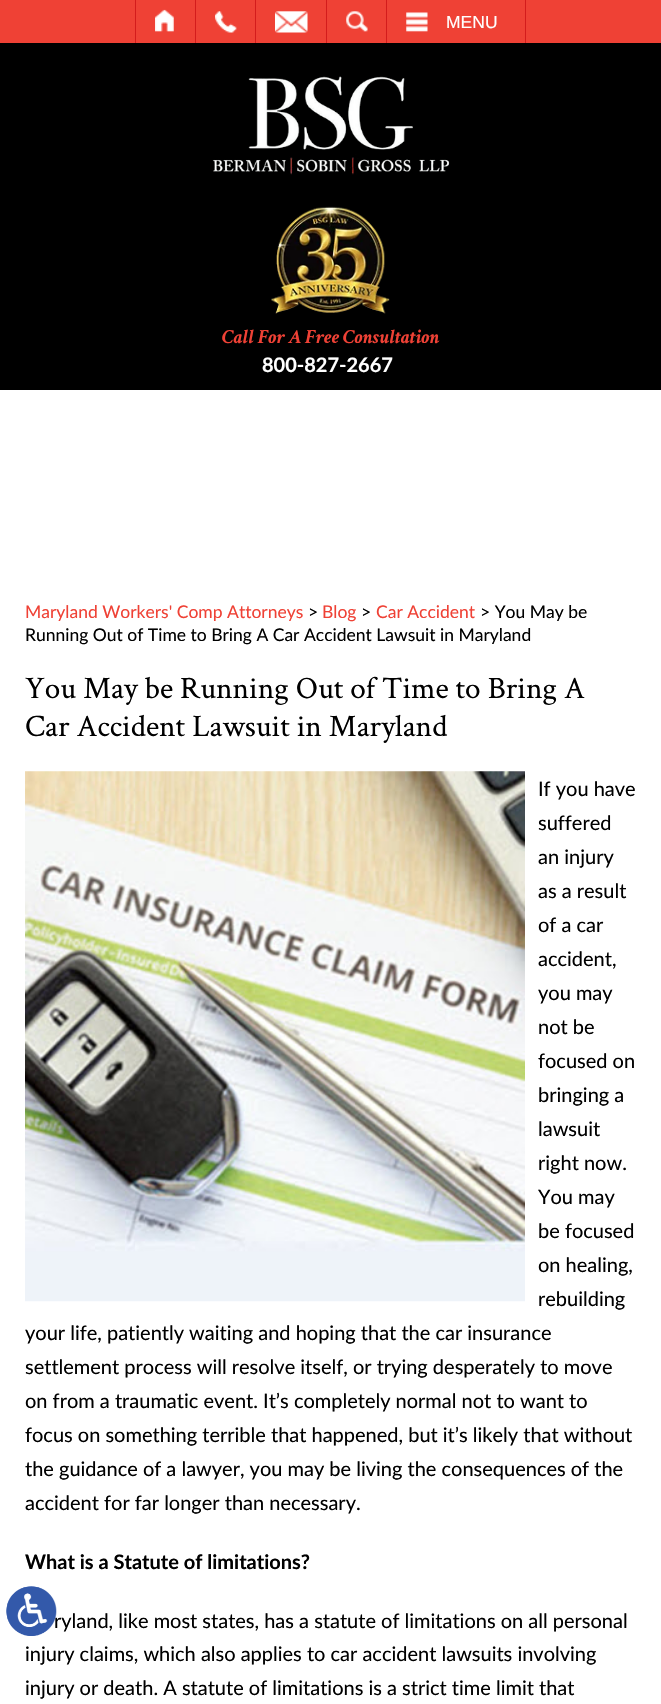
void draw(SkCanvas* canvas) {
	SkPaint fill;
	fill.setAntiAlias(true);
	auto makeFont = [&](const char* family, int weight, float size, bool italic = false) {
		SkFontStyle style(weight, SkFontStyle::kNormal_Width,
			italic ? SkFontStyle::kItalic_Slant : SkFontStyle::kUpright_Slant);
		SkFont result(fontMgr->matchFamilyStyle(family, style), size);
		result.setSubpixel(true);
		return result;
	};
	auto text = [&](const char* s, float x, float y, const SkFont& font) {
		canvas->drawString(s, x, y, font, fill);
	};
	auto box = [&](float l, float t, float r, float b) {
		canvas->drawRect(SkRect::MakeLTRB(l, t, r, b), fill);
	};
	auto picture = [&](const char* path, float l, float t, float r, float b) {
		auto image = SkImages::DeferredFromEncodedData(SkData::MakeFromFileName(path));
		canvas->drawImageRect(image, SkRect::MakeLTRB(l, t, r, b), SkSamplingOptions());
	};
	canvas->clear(0xFFFFFFFF);
	fill.setColor(0xFF000000);
	box(0, 43, 661, 390);
	fill.setColor(0xB3000000);
	fill.setMaskFilter(SkMaskFilter::MakeBlur(kNormal_SkBlurStyle, 6));
	canvas->drawRect(SkRect::MakeLTRB(0, 1, 661, 44), fill);
	fill.setMaskFilter(nullptr);
	fill.setColor(0xFFEF4135);
	box(0, 0, 661, 43);
	fill.setColor(0xFFD41C1C);
	box(195, 0, 196, 43);
	box(135, 0, 136, 43);
	picture("image0.png", 155, 9, 174, 32);
	box(255, 0, 256, 43);
	picture("image1.png", 215, 11, 237, 33);
	box(326, 0, 327, 43);
	picture("image2.png", 275, 11, 308, 33);
	box(386, 0, 387, 43);
	picture("image3.png", 346, 11, 368, 32);
	box(525, 0, 526, 43);
	picture("image4.png", 406, 12, 428, 32);
	picture("image5.png", 212, 76, 450, 175);
	picture("image6.png", 271, 206, 390, 314);
	picture("image7.png", 25, 771, 525, 1302);
	auto font1 = makeFont("Liberation Sans", 400, 17.5f);
	fill.setColor(0xFFFFFFFF);
	text("MENU", 446, 28, font1);
	auto font2 = makeFont("Crimson Text", 700, 20, true);
	fill.setColor(0xFFEF4135);
	text("Call For A Free Consultation", 222, 343, font2);
	auto font3 = makeFont("Lato", 700, 20);
	fill.setColor(0xFFFFFFFF);
	text("800-827-2667", 262, 372, font3);
	auto font4 = makeFont("Lato", 400, 17.5f);
	fill.setColor(0xFFEF4135);
	text("Maryland Workers' Comp Attorneys", 25, 618, font4);
	fill.setColor(0xFF000000);
	text(">", 308, 618, font4);
	fill.setColor(0xFFEF4135);
	text("Blog", 322, 618, font4);
	fill.setColor(0xFF000000);
	text(">", 361, 618, font4);
	fill.setColor(0xFFEF4135);
	text("Car Accident", 376, 618, font4);
	fill.setColor(0xFF000000);
	text("> You May be", 480, 618, font4);
	text("Running Out of Time to Bring A Car Accident Lawsuit in Maryland", 25, 641, font4);
	auto font5 = makeFont("Crimson Text", 400, 31.25f);
	text("You May be Running Out of Time to Bring A", 25, 698, font5);
	text("Car Accident Lawsuit in Maryland", 25, 736, font5);
	auto font6 = makeFont("Lato", 400, 20);
	text("If you have", 538, 796, font6);
	text("suffered", 538, 830, font6);
	text("an injury", 538, 864, font6);
	text("as a result", 538, 898, font6);
	text("of a car", 538, 932, font6);
	text("accident,", 538, 966, font6);
	text("you may", 538, 1000, font6);
	text("not be", 538, 1034, font6);
	text("focused on", 538, 1068, font6);
	text("bringing a", 538, 1102, font6);
	text("lawsuit", 538, 1136, font6);
	text("right now.", 538, 1170, font6);
	text("You may", 538, 1204, font6);
	text("be focused", 538, 1238, font6);
	text("on healing,", 538, 1272, font6);
	text("rebuilding", 538, 1306, font6);
	text("your life, patiently waiting and hoping that the car insurance", 25, 1340, font6);
	text("settlement process will resolve itself, or trying desperately to move", 25, 1374, font6);
	text("on from a traumatic event. It’s completely normal not to want to", 25, 1408, font6);
	text("focus on something terrible that happened, but it’s likely that without", 25, 1442, font6);
	text("the guidance of a lawyer, you may be living the consequences of the", 25, 1476, font6);
	text("accident for far longer than necessary.", 25, 1510, font6);
	text("What is a Statute of limitations?", 25, 1569, font3);
	text("ryland, like most states, has a statute of limitations on all personal", 54, 1628, font6);
	text("injury claims, which also applies to car accident lawsuits involving", 25, 1661, font6);
	text("injury or death. A statute of limitations is a strict time limit that", 25, 1695, font6);
	picture("image8.png", 6, 1586, 57, 1636);
}
